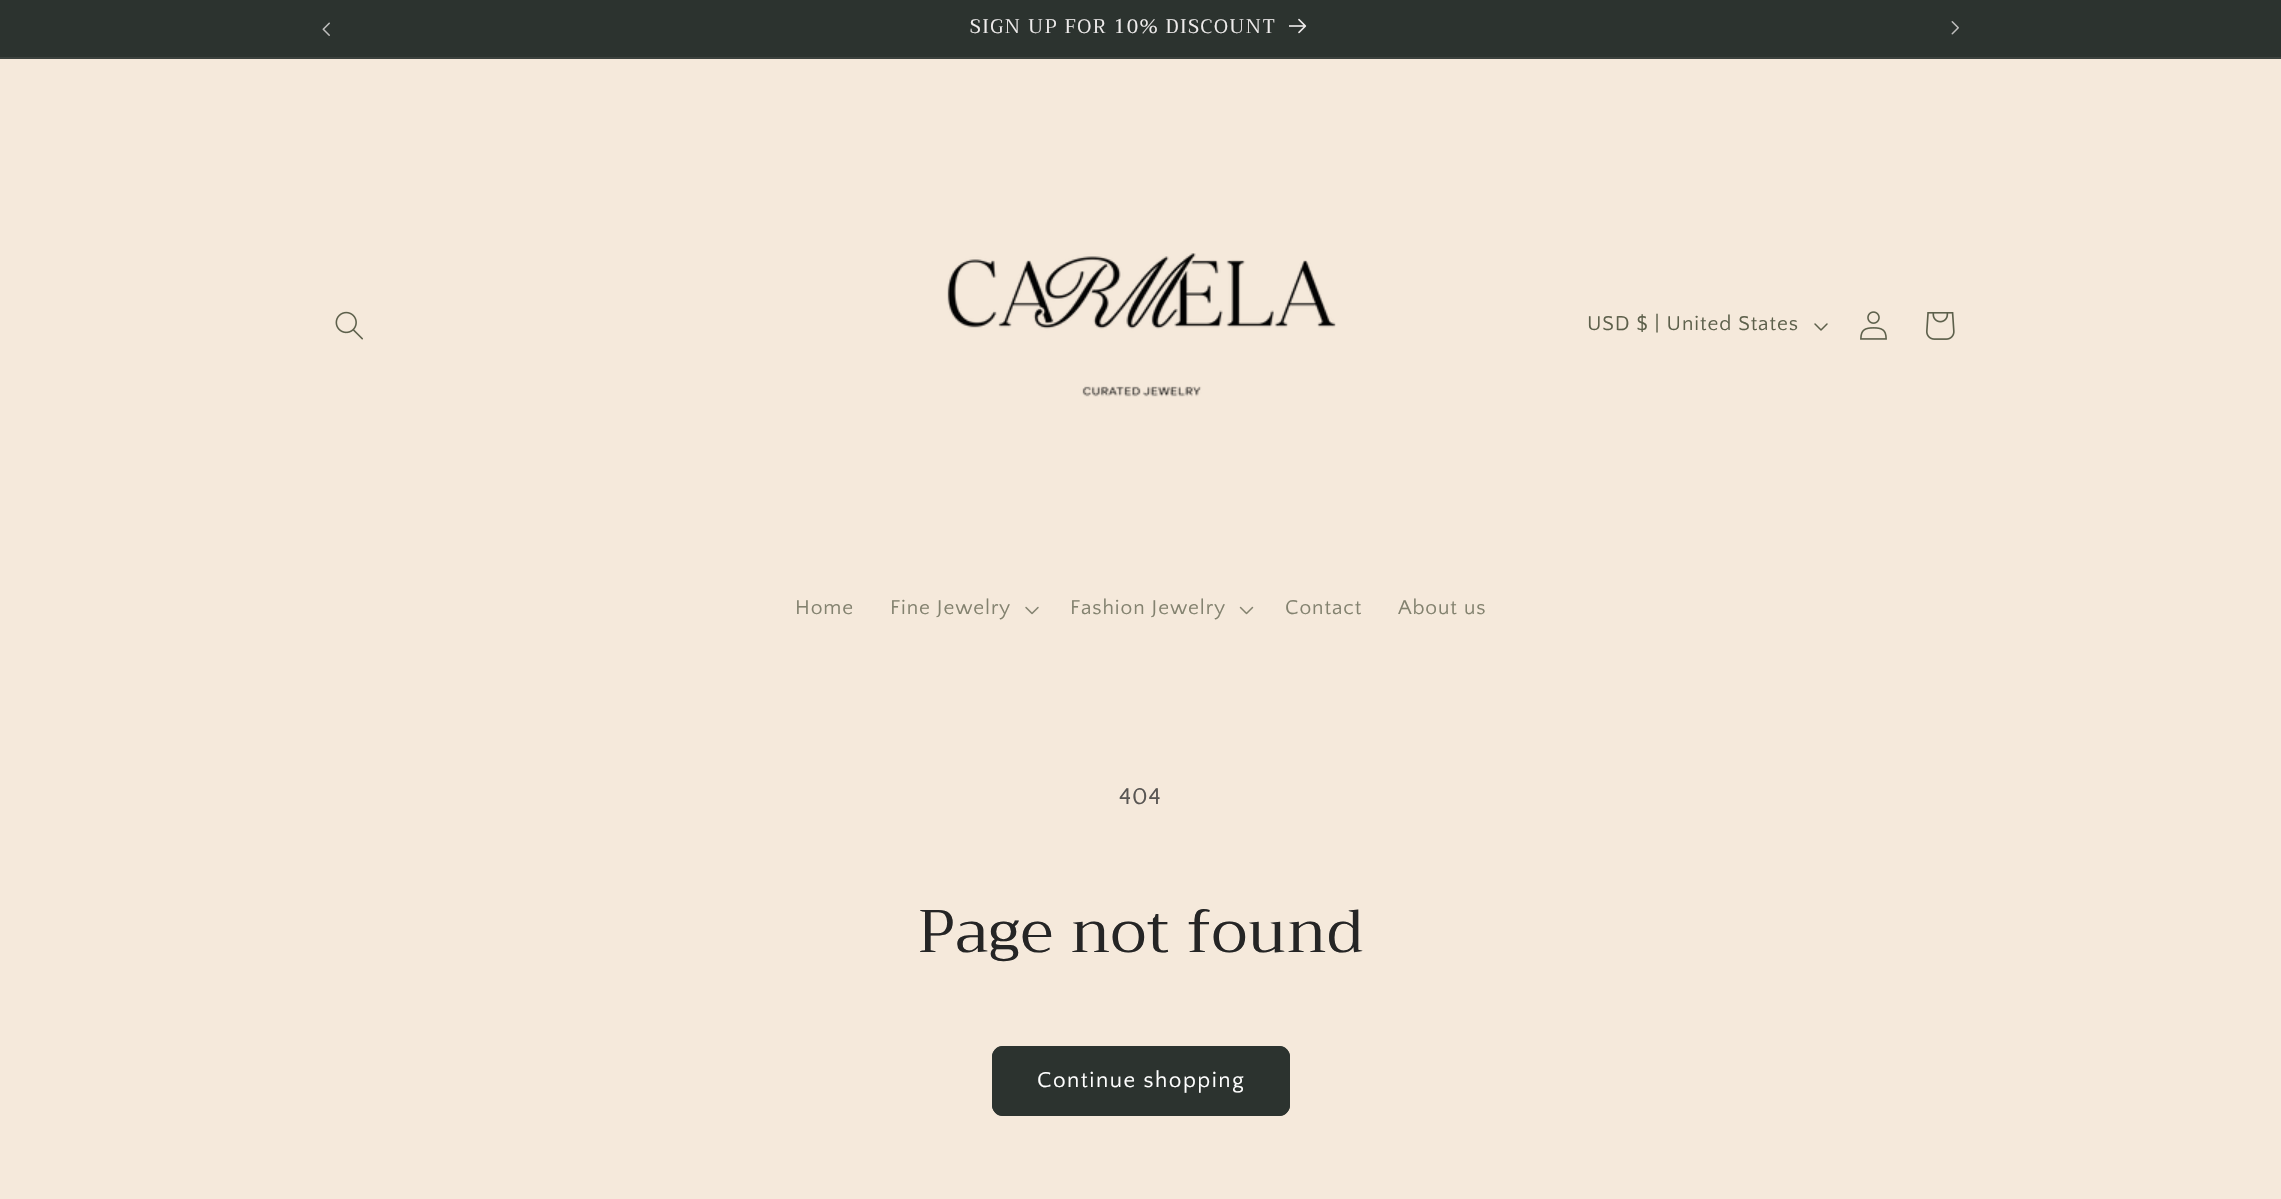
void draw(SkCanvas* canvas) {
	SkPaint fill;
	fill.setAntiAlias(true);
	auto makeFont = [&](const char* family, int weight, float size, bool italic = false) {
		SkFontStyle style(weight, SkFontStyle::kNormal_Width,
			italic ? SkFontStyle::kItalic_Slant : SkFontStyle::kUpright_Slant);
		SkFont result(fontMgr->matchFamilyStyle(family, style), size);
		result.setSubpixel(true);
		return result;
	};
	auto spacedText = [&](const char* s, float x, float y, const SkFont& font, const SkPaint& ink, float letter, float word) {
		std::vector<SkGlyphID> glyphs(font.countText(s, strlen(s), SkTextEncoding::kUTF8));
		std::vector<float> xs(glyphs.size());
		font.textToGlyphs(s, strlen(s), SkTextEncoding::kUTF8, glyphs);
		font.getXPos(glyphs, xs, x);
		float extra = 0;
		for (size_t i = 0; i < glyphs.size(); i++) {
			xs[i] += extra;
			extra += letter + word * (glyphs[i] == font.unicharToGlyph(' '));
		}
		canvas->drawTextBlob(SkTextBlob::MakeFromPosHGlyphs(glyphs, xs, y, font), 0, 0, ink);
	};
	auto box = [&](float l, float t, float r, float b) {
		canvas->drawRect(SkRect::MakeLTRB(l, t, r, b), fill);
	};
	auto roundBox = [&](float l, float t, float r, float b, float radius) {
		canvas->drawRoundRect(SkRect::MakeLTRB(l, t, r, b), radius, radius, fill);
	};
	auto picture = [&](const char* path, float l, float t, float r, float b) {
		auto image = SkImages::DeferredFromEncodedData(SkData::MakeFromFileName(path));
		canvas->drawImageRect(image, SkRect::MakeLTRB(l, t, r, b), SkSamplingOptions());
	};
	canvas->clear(0xFFF5E9DB);
	fill.setColor(0xFF2C332F);
	box(0, 0, 2281, 57);
	fill.setColor(0xFF3C423E);
	box(0, 57, 2281, 59);
	picture("image0.png", 322, 22, 330, 36);
	picture("image1.png", 1289, 18, 1307, 34);
	picture("image2.png", 1951, 21, 1959, 35);
	picture("image3.png", 335, 311, 363, 340);
	picture("image4.png", 947, 253, 1336, 397);
	picture("image5.png", 1814, 323, 1828, 331);
	picture("image6.png", 1860, 311, 1887, 340);
	picture("image7.png", 1926, 312, 1955, 340);
	picture("image8.png", 1025, 606, 1039, 615);
	picture("image9.png", 1239, 606, 1254, 615);
	fill.setColor(0xFF2C332F);
	roundBox(992, 1046, 1290, 1116, 11);
	fill.setStyle(SkPaint::kStroke_Style);
	fill.setStrokeWidth(2);
	canvas->drawRoundRect(SkRect::MakeLTRB(993, 1047, 1289, 1115), 10, 10, fill);
	auto font1 = makeFont("Trirong", 400, 19.5f);
	fill.setStyle(SkPaint::kFill_Style);
	fill.setColor(0xFFEFECEC);
	spacedText("SIGN UP FOR 10% DISCOUNT", 970, 33, font1, fill, 1.5f, 0);
	auto font2 = makeFont("Quattrocento Sans", 400, 21);
	fill.setColor(0xFF5D604B);
	spacedText("USD $ | United States", 1587, 330, font2, fill, 0.9f, 0);
	fill.setColor(0xFF83826F);
	spacedText("Home", 795, 614, font2, fill, 0.9f, 0);
	spacedText("Fine Jewelry", 890, 614, font2, fill, 0.9f, 0);
	spacedText("Fashion Jewelry", 1070, 614, font2, fill, 0.9f, 0);
	spacedText("Contact", 1285, 614, font2, fill, 0.9f, 0);
	spacedText("About us", 1398, 614, font2, fill, 0.9f, 0);
	auto font3 = makeFont("Quattrocento Sans", 400, 24);
	fill.setColor(0xFF595653);
	spacedText("404", 1119, 804, font3, fill, 0.9f, 0);
	auto font4 = makeFont("Trirong", 400, 60);
	fill.setColor(0xFF252525);
	spacedText("Page not found", 918, 952, font4, fill, 0.9f, 0);
	auto font5 = makeFont("Quattrocento Sans", 400, 22.5f);
	fill.setColor(0xFFFFFFFF);
	spacedText("Continue shopping", 1037, 1087, font5, fill, 1.5f, 0);
}
